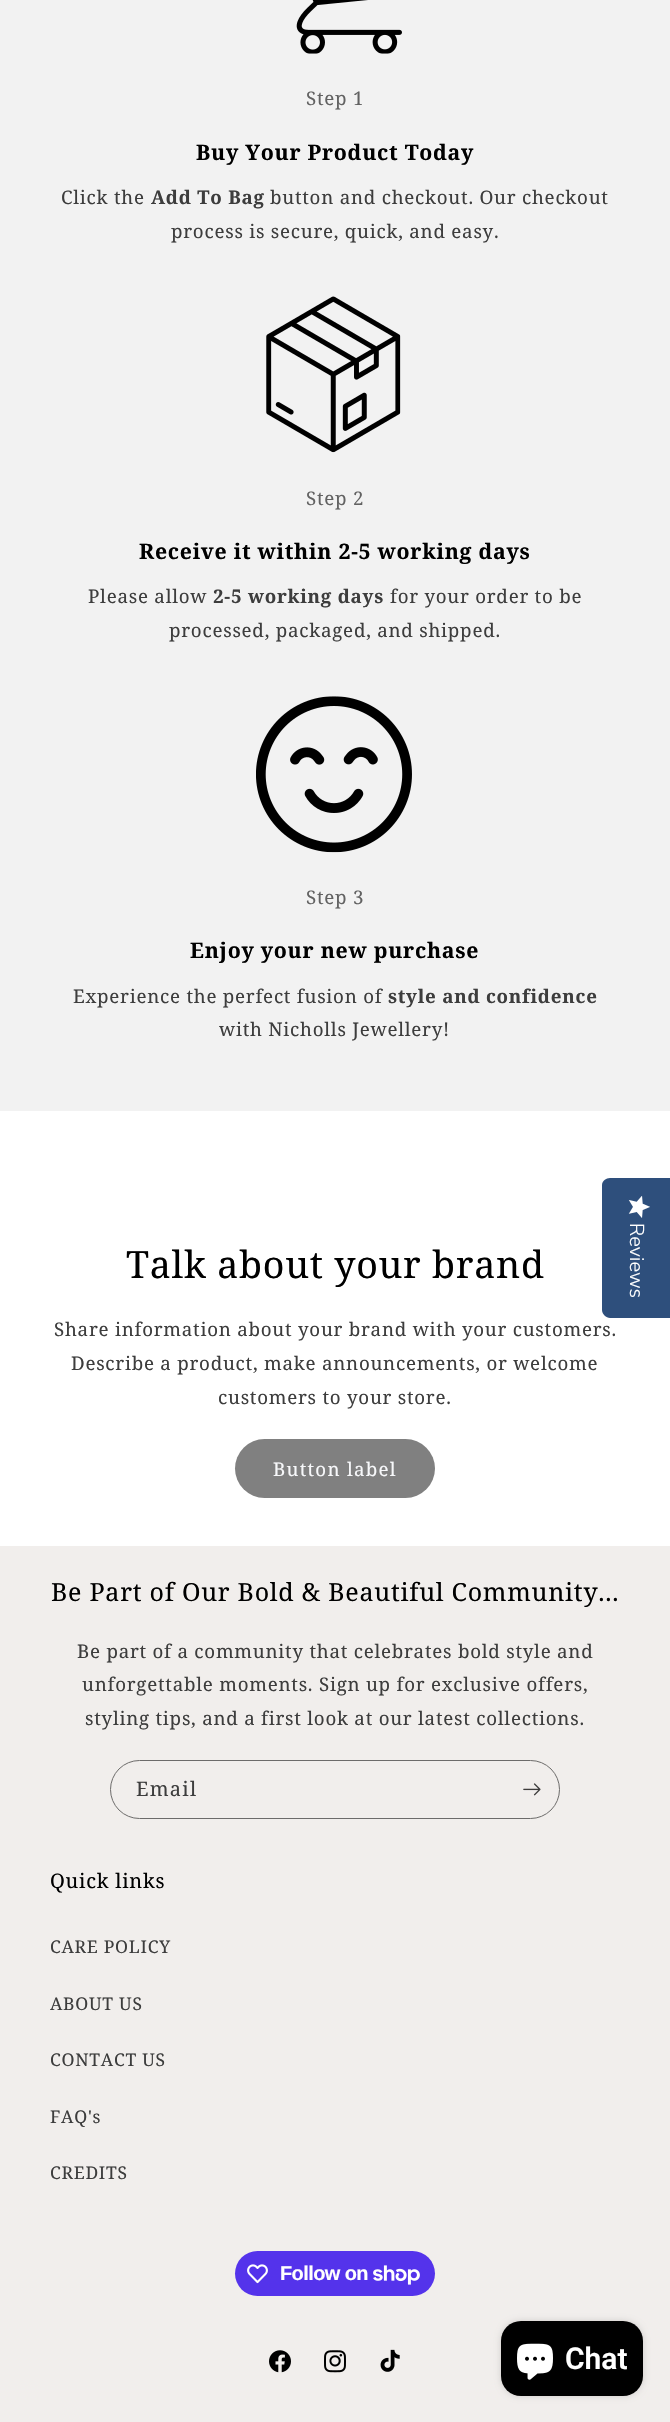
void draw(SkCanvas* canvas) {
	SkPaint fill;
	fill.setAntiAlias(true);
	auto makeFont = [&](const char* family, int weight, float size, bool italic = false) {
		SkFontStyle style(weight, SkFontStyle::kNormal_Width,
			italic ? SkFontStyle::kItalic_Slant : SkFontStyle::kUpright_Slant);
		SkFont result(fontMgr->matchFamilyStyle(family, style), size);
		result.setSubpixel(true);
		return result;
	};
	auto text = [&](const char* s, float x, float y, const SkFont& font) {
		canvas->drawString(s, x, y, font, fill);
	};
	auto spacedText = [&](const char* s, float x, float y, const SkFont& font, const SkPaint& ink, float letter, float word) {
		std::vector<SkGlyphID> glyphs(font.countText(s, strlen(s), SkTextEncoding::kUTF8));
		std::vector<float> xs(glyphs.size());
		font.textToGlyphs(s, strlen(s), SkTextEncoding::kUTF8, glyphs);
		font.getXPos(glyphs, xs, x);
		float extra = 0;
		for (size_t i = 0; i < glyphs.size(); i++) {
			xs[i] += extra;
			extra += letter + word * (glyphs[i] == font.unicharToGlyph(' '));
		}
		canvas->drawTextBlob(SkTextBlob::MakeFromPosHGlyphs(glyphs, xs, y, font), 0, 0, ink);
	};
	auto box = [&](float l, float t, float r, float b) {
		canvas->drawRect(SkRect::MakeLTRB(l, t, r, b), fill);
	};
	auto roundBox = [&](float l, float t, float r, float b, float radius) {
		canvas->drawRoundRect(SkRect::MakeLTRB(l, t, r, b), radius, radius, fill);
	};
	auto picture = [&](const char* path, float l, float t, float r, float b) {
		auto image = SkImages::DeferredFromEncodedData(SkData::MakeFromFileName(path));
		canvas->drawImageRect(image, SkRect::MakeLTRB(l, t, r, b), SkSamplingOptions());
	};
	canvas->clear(0xFFFFFFFF);
	fill.setColor(0xFFF2F2F2);
	box(0, 0, 670, 1111);
	picture("image0.png", 296, 0, 402, 54);
	picture("image1.png", 266, 296, 401, 453);
	picture("image2.png", 256, 696, 412, 853);
	fill.setColor(0xFF808080);
	roundBox(235, 1439, 435, 1498, 29.5f);
	fill.setColor(0xFF2E4F7C);
	canvas->drawPath(SkPathBuilder().moveTo(670, 1178).lineTo(670, 1318).lineTo(610, 1318).cubicTo(606, 1318, 602, 1314, 602, 1310).lineTo(602, 1185).cubicTo(602, 1181, 606, 1178, 610, 1178).close().detach(), fill);
	picture("image3.png", 628, 1196, 650, 1218);
	fill.setColor(0xFFF1EEEC);
	box(0, 1546, 670, 2422);
	fill.setStyle(SkPaint::kStroke_Style);
	fill.setStrokeWidth(1);
	fill.setColor(0xFF6C6B6A);
	canvas->drawRoundRect(SkRect::MakeLTRB(110.5f, 1760.5f, 559.5f, 1818.5f), 29, 29, fill);
	picture("image4.png", 523, 1783, 541, 1796);
	fill.setStyle(SkPaint::kFill_Style);
	fill.setColor(0xFF5433EB);
	roundBox(235, 2251, 435, 2296, 22.5f);
	picture("image5.png", 247, 2264, 268, 2284);
	picture("image6.png", 373, 2265, 420, 2285);
	picture("image7.png", 269, 2350, 291, 2373);
	picture("image8.png", 324, 2350, 346, 2373);
	picture("image9.png", 380, 2349, 400, 2372);
	fill.setColor(0x26000000);
	fill.setMaskFilter(SkMaskFilter::MakeBlur(kNormal_SkBlurStyle, 3));
	canvas->drawRoundRect(SkRect::MakeLTRB(501, 2321, 643, 2396), 20, 20, fill);
	fill.setMaskFilter(nullptr);
	fill.setColor(0xFF000000);
	roundBox(501, 2321, 643, 2396, 20);
	picture("image10.png", 517, 2343, 553, 2380);
	auto font1 = makeFont("Noto Serif", 400, 18.75f);
	fill.setColor(0xFF626262);
	spacedText("Step 1", 306, 105, font1, fill, 0.75f, 0);
	auto font2 = makeFont("Noto Serif", 700, 21.25f);
	fill.setColor(0xFF000000);
	spacedText("Buy Your Product Today", 196, 160, font2, fill, 0.75f, 0);
	fill.setColor(0xFF3D3D3D);
	spacedText("Click the", 61, 204, font1, fill, 0.75f, 0);
	auto font3 = makeFont("Noto Serif", 700, 18.75f);
	spacedText("Add To Bag", 151, 204, font3, fill, 0.75f, 0);
	spacedText("button and checkout. Our checkout", 270, 204, font1, fill, 0.75f, 0);
	spacedText("process is secure, quick, and easy.", 171, 238, font1, fill, 0.75f, 0);
	fill.setColor(0xFF626262);
	spacedText("Step 2", 306, 505, font1, fill, 0.75f, 0);
	fill.setColor(0xFF000000);
	spacedText("Receive it within 2-5 working days", 139, 559, font2, fill, 0.75f, 0);
	fill.setColor(0xFF3D3D3D);
	spacedText("Please allow", 88, 603, font1, fill, 0.75f, 0);
	spacedText("2-5 working days", 213, 603, font3, fill, 0.75f, 0);
	spacedText("for your order to be", 390, 603, font1, fill, 0.75f, 0);
	spacedText("processed, packaged, and shipped.", 169, 637, font1, fill, 0.75f, 0);
	fill.setColor(0xFF626262);
	spacedText("Step 3", 306, 904, font1, fill, 0.75f, 0);
	fill.setColor(0xFF000000);
	spacedText("Enjoy your new purchase", 190, 958, font2, fill, 0.75f, 0);
	fill.setColor(0xFF3D3D3D);
	spacedText("Experience the perfect fusion of", 73, 1003, font1, fill, 0.75f, 0);
	spacedText("style and confidence", 388, 1003, font3, fill, 0.75f, 0);
	spacedText("with Nicholls Jewellery!", 219, 1036, font1, fill, 0.75f, 0);
	auto font4 = makeFont("Noto Serif", 400, 37.5f);
	fill.setColor(0xFF000000);
	spacedText("Talk about your brand", 126, 1278, font4, fill, 0.75f, 0);
	fill.setColor(0xFF3D3D3D);
	spacedText("Share information about your brand with your customers.", 54, 1336, font1, fill, 0.75f, 0);
	spacedText("Describe a product, make announcements, or welcome", 71, 1370, font1, fill, 0.75f, 0);
	spacedText("customers to your store.", 218, 1404, font1, fill, 0.75f, 0);
	fill.setColor(0xFFF7F8FA);
	spacedText("Button label", 273, 1476, font1, fill, 1.25f, 0);
	auto font5 = makeFont("Nunito Sans", 300, 20);
	fill.setColor(0xFFFFFFFF);
	canvas->save();
	canvas->rotate(90, 630, 1223);
	text("Reviews", 630, 1223, font5);
	canvas->restore();
	auto font6 = makeFont("Noto Serif", 400, 25);
	fill.setColor(0xFF000000);
	spacedText("Be Part of Our Bold & Beautiful Community...", 51, 1601, font6, fill, 0.75f, 0);
	fill.setColor(0xFF3D3D3D);
	spacedText("Be part of a community that celebrates bold style and", 77, 1658, font1, fill, 0.75f, 0);
	spacedText("unforgettable moments. Sign up for exclusive offers,", 82, 1691, font1, fill, 0.75f, 0);
	spacedText("styling tips, and a first look at our latest collections.", 85, 1725, font1, fill, 0.75f, 0);
	auto font7 = makeFont("Noto Serif", 400, 20);
	spacedText("Email", 136, 1796, font7, fill, 1.25f, 0);
	fill.setColor(0xFF000000);
	spacedText("Quick links", 50, 1888, font7, fill, 0.75f, 0);
	auto font8 = makeFont("Noto Serif", 400, 17.5f);
	fill.setColor(0xFF3D3D3D);
	spacedText("CARE POLICY", 50, 1953, font8, fill, 0.75f, 0);
	spacedText("ABOUT US", 50, 2010, font8, fill, 0.75f, 0);
	spacedText("CONTACT US", 50, 2066, font8, fill, 0.75f, 0);
	spacedText("FAQ's", 50, 2123, font8, fill, 0.75f, 0);
	spacedText("CREDITS", 50, 2179, font8, fill, 0.75f, 0);
	auto font9 = makeFont("Liberation Sans", 700, 20);
	fill.setColor(0xFFFFFFFF);
	spacedText("Follow on", 280, 2280, font9, fill, -0.6f, 0);
	auto font10 = makeFont("Roboto", 600, 30);
	text("Chat", 565, 2369, font10);
}
